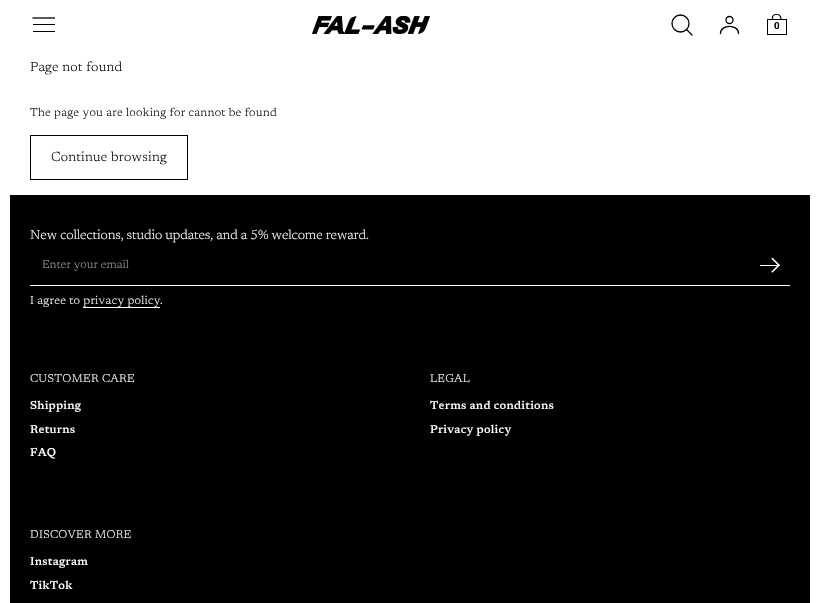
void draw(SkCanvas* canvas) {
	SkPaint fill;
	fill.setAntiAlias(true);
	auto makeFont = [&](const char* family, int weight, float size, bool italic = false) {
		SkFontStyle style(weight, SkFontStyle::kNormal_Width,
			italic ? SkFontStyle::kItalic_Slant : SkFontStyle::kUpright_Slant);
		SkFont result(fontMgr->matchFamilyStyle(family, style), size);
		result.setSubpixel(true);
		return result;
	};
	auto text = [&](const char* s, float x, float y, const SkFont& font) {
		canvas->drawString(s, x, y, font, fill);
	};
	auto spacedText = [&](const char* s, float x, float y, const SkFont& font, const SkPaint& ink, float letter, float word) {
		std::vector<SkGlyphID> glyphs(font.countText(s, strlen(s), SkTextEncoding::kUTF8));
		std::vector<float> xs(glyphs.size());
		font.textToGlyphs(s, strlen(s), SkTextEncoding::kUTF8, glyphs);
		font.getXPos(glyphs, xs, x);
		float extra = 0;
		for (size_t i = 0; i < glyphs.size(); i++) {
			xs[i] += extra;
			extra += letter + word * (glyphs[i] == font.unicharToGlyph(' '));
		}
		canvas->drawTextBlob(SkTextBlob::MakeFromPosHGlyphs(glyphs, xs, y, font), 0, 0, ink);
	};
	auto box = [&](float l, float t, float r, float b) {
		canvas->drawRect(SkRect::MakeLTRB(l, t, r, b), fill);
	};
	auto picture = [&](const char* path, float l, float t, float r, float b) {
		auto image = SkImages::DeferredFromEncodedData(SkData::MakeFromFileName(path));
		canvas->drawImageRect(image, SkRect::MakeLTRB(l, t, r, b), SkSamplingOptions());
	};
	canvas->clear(0xFFFFFFFF);
	fill.setStyle(SkPaint::kStroke_Style);
	fill.setStrokeWidth(1.3f);
	fill.setColor(0xFF000000);
	canvas->drawPath(SkPathBuilder().moveTo(32.5f, 18).lineTo(55, 18).detach(), fill);
	fill.setStyle(SkPaint::kFill_Style);
	box(33, 24, 55, 25);
	box(33, 31, 55, 32);
	picture("image0.png", 312, 16, 431, 34);
	fill.setStyle(SkPaint::kStroke_Style);
	canvas->drawCircle(680.5f, 23.5f, 8.5f, fill);
	fill.setStrokeCap(SkPaint::kRound_Cap);
	canvas->drawPath(SkPathBuilder().moveTo(686.5f, 29.5f).lineTo(692, 35).detach(), fill);
	fill.setStrokeCap(SkPaint::kButt_Cap);
	canvas->drawCircle(729.5f, 20, 3.5f, fill);
	fill.setStrokeCap(SkPaint::kRound_Cap);
	canvas->drawPath(SkPathBuilder().moveTo(720.5f, 33.5f).cubicTo(720.5f, 24, 738.5f, 24, 738.5f, 33.5f).detach(), fill);
	fill.setStrokeWidth(1);
	fill.setStrokeCap(SkPaint::kButt_Cap);
	canvas->drawRect(SkRect::MakeLTRB(767.5f, 19.5f, 786.5f, 34.5f), fill);
	fill.setStrokeWidth(1.2f);
	fill.setStrokeCap(SkPaint::kRound_Cap);
	canvas->drawPath(SkPathBuilder().moveTo(772.5f, 19.5f).lineTo(772.5f, 16.5f).cubicTo(774, 13.5f, 779, 13.5f, 780.5f, 16.5f).lineTo(781, 19.5f).detach(), fill);
	fill.setStrokeWidth(1);
	fill.setStrokeCap(SkPaint::kButt_Cap);
	canvas->drawRect(SkRect::MakeLTRB(30.5f, 135.5f, 187.5f, 179.5f), fill);
	fill.setStyle(SkPaint::kFill_Style);
	box(10, 195, 810, 603);
	fill.setColor(0xFFFFFFFF);
	box(30, 285, 790, 286);
	picture("image1.png", 760, 257, 780, 273);
	box(83, 307, 160, 308);
	auto font1 = makeFont("Liberation Sans", 700, 10);
	fill.setColor(0xFF000000);
	spacedText("0", 774, 29, font1, fill, 0.25f, 0);
	auto font2 = makeFont("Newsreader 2", 300, 13.3f);
	spacedText("Page not found", 30, 71, font2, fill, 0.25f, 0);
	auto font3 = makeFont("Newsreader", 300, 11.3f);
	spacedText("The page you are looking for cannot be found", 30, 116, font3, fill, 0.25f, 0);
	spacedText("Continue browsing", 51, 161, font2, fill, 0.25f, 0);
	fill.setColor(0xFFFFFFFF);
	spacedText("New collections, studio updates, and a 5% welcome reward.", 30, 239, font2, fill, -0.13f, 0);
	fill.setColor(0xFF9E9E9E);
	text("Enter your email", 42, 268, font3);
	fill.setColor(0xFFFFFFFF);
	spacedText("I agree to privacy policy", 30, 304, font3, fill, 0.25f, 0);
	spacedText(".", 160, 304, font3, fill, 0.25f, 0);
	spacedText("CUSTOMER CARE", 30, 382, font3, fill, 0.25f, 0);
	auto font4 = makeFont("Newsreader", 500, 11.3f);
	spacedText("Shipping", 30, 409, font4, fill, 0.25f, 0);
	spacedText("Returns", 30, 433, font4, fill, 0.25f, 0);
	spacedText("FAQ", 30, 456, font4, fill, 0.25f, 0);
	spacedText("LEGAL", 430, 382, font3, fill, 0.25f, 0);
	spacedText("Terms and conditions", 430, 409, font4, fill, 0.25f, 0);
	spacedText("Privacy policy", 430, 433, font4, fill, 0.25f, 0);
	spacedText("DISCOVER MORE", 30, 538, font3, fill, 0.25f, 0);
	spacedText("Instagram", 30, 565, font4, fill, 0.25f, 0);
	spacedText("TikTok", 30, 589, font4, fill, 0.25f, 0);
}
